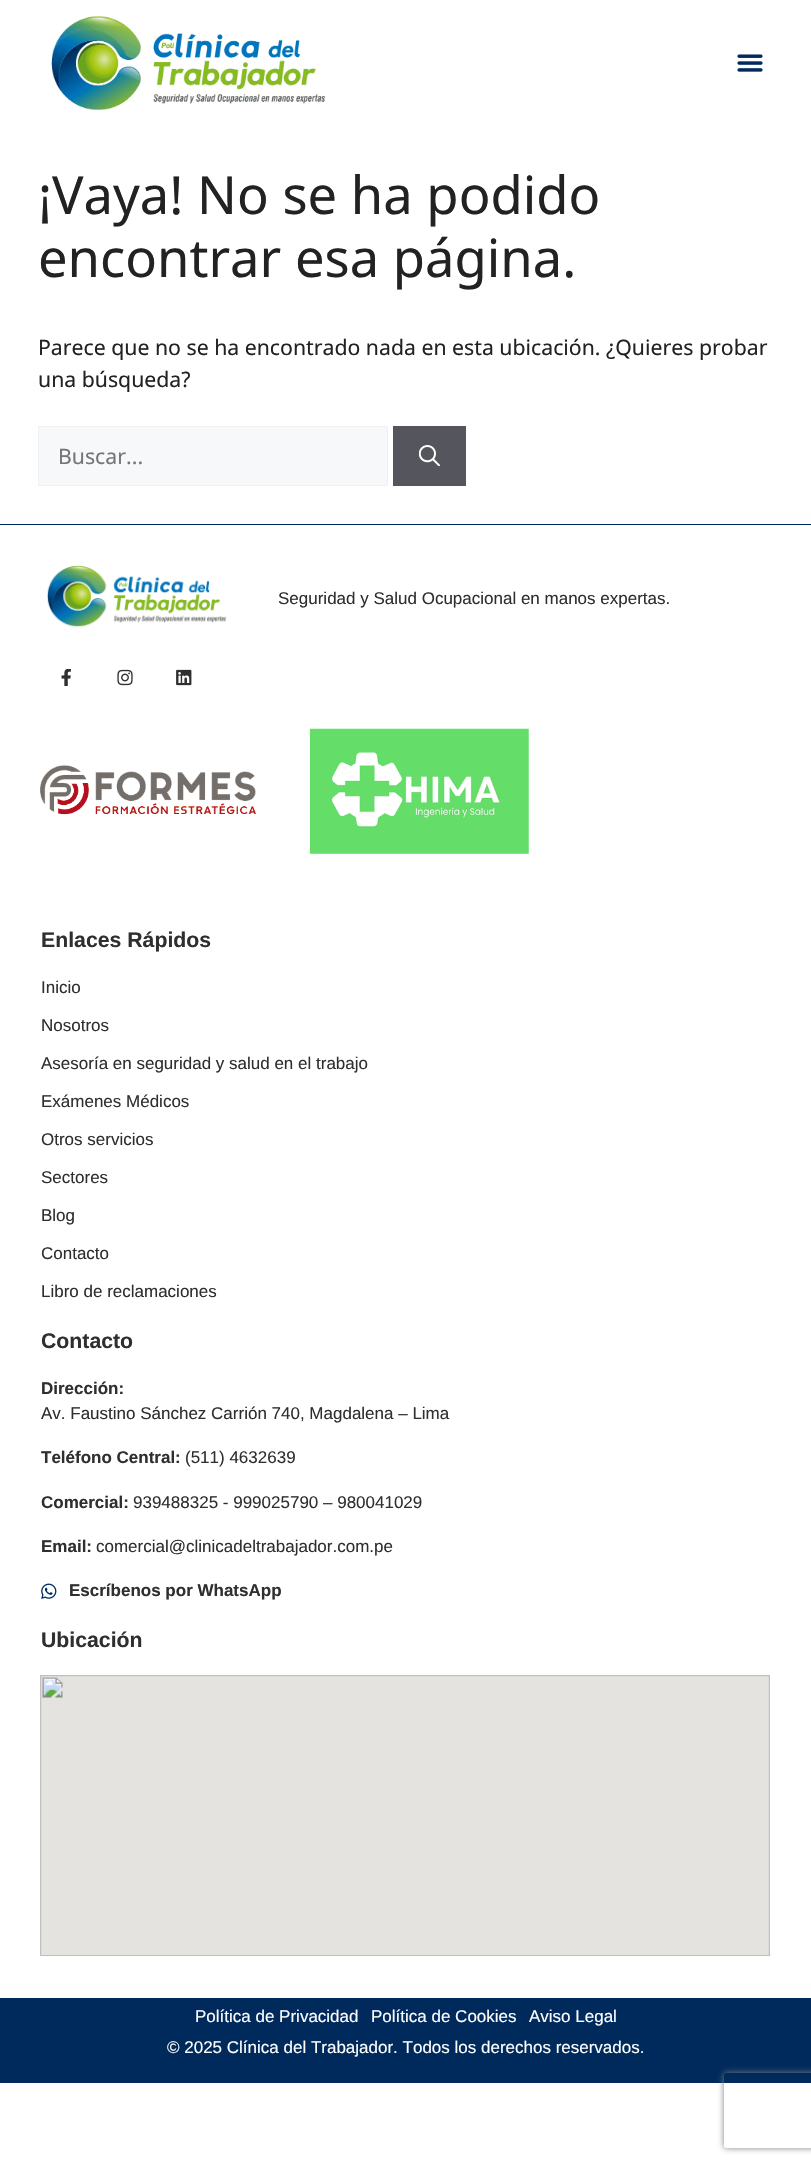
void draw(SkCanvas* canvas) {
	SkPaint fill;
	fill.setAntiAlias(true);
	auto makeFont = [&](const char* family, int weight, float size, bool italic = false) {
		SkFontStyle style(weight, SkFontStyle::kNormal_Width,
			italic ? SkFontStyle::kItalic_Slant : SkFontStyle::kUpright_Slant);
		SkFont result(fontMgr->matchFamilyStyle(family, style), size);
		result.setSubpixel(true);
		return result;
	};
	auto text = [&](const char* s, float x, float y, const SkFont& font) {
		canvas->drawString(s, x, y, font, fill);
	};
	auto box = [&](float l, float t, float r, float b) {
		canvas->drawRect(SkRect::MakeLTRB(l, t, r, b), fill);
	};
	auto picture = [&](const char* path, float l, float t, float r, float b) {
		auto image = SkImages::DeferredFromEncodedData(SkData::MakeFromFileName(path));
		canvas->drawImageRect(image, SkRect::MakeLTRB(l, t, r, b), SkSamplingOptions());
	};
	canvas->clear(0xFFFFFFFF);
	picture("image0.png", 51, 16, 326, 110);
	picture("image1.png", 737, 54, 763, 72);
	fill.setColor(0xFFF7F8F9);
	canvas->drawRect(SkRect::MakeLTRB(38.5f, 426.5f, 387.5f, 485.5f), fill);
	fill.setStyle(SkPaint::kStroke_Style);
	fill.setStrokeWidth(1);
	fill.setColor(0xFFF0F0F0);
	canvas->drawRect(SkRect::MakeLTRB(38.5f, 426.5f, 387.5f, 485.5f), fill);
	fill.setStyle(SkPaint::kFill_Style);
	fill.setColor(0xFF55555E);
	box(393, 426, 466, 486);
	picture("image2.png", 419, 445, 440, 466);
	fill.setColor(0xFF002A5C);
	box(0, 524, 811, 525);
	picture("image3.png", 47, 565, 227, 627);
	picture("image4.png", 61, 669, 71, 686);
	picture("image5.png", 117, 669, 133, 686);
	picture("image6.png", 176, 669, 192, 686);
	picture("image7.png", 40, 765, 256, 815);
	picture("image8.png", 310, 728, 529, 854);
	picture("image9.png", 41, 1583, 57, 1599);
	picture("image10.png", 40, 1675, 770, 1957);
	box(0, 1998, 811, 2083);
	canvas->save();
	canvas->clipPath(SkPathBuilder(SkPathFillType::kEvenOdd).moveTo(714, 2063).lineTo(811, 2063).lineTo(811, 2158).lineTo(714, 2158).close().moveTo(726.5f, 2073).lineTo(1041.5f, 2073).cubicTo(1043, 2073, 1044, 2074, 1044, 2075.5f).lineTo(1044, 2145.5f).cubicTo(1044, 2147, 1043, 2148, 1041.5f, 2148).lineTo(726.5f, 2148).cubicTo(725, 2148, 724, 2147, 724, 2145.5f).lineTo(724, 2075.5f).cubicTo(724, 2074, 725, 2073, 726.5f, 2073).close().detach(), true);
	fill.setColor(0xFF808080);
	fill.setMaskFilter(SkMaskFilter::MakeBlur(kNormal_SkBlurStyle, 3));
	canvas->drawRoundRect(SkRect::MakeLTRB(724, 2073, 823, 2148), 2.5f, 2.5f, fill);
	fill.setMaskFilter(nullptr);
	canvas->restore();
	auto font1 = makeFont("Noto Sans", 400, 52.5f);
	fill.setColor(0xFF222222);
	text("¡Vaya! No se ha podido", 38, 214, font1);
	text("encontrar esa página.", 38, 277, font1);
	auto font2 = makeFont("Noto Sans", 400, 21.25f);
	text("Parece que no se ha encontrado nada en esta ubicación. ¿Quieres probar", 38, 355, font2);
	text("una búsqueda?", 38, 387, font2);
	fill.setColor(0xFF757575);
	text("Buscar...", 58, 464, font2);
	auto font3 = makeFont("Liberation Sans", 400, 17);
	fill.setColor(0xFF2F2F2F);
	text("Seguridad y Salud Ocupacional en manos expertas.", 278, 604, font3);
	auto font4 = makeFont("Liberation Sans", 700, 21.25f);
	text("Enlaces Rápidos", 41, 947, font4);
	text("Inicio", 41, 993, font3);
	text("Nosotros", 41, 1031, font3);
	text("Asesoría en seguridad y salud en el trabajo", 41, 1069, font3);
	text("Exámenes Médicos", 41, 1107, font3);
	text("Otros servicios", 41, 1145, font3);
	text("Sectores", 41, 1183, font3);
	text("Blog", 41, 1221, font3);
	text("Contacto", 41, 1259, font3);
	text("Libro de reclamaciones", 41, 1297, font3);
	text("Contacto", 41, 1348, font4);
	auto font5 = makeFont("Liberation Sans", 700, 17);
	text("Dirección:", 41, 1394, font5);
	text("Av. Faustino Sánchez Carrión 740, Magdalena – Lima", 41, 1419, font3);
	text("Teléfono Central:", 41, 1463, font5);
	text("(511) 4632639", 185, 1463, font3);
	text("Comercial:", 41, 1508, font5);
	text("939488325 - 999025790 – 980041029", 133, 1508, font3);
	text("Email:", 41, 1552, font5);
	text("comercial@clinicadeltrabajador.com.pe", 96, 1552, font3);
	text("Escríbenos por WhatsApp", 69, 1596, font5);
	text("Ubicación", 41, 1647, font4);
	fill.setColor(0xFFFFFFFF);
	text("Política de Privacidad", 195, 2022, font3);
	text("Política de Cookies", 371, 2022, font3);
	text("Aviso Legal", 529, 2022, font3);
	text("© 2025 Clínica del Trabajador. Todos los derechos reservados.", 167, 2053, font3);
}
